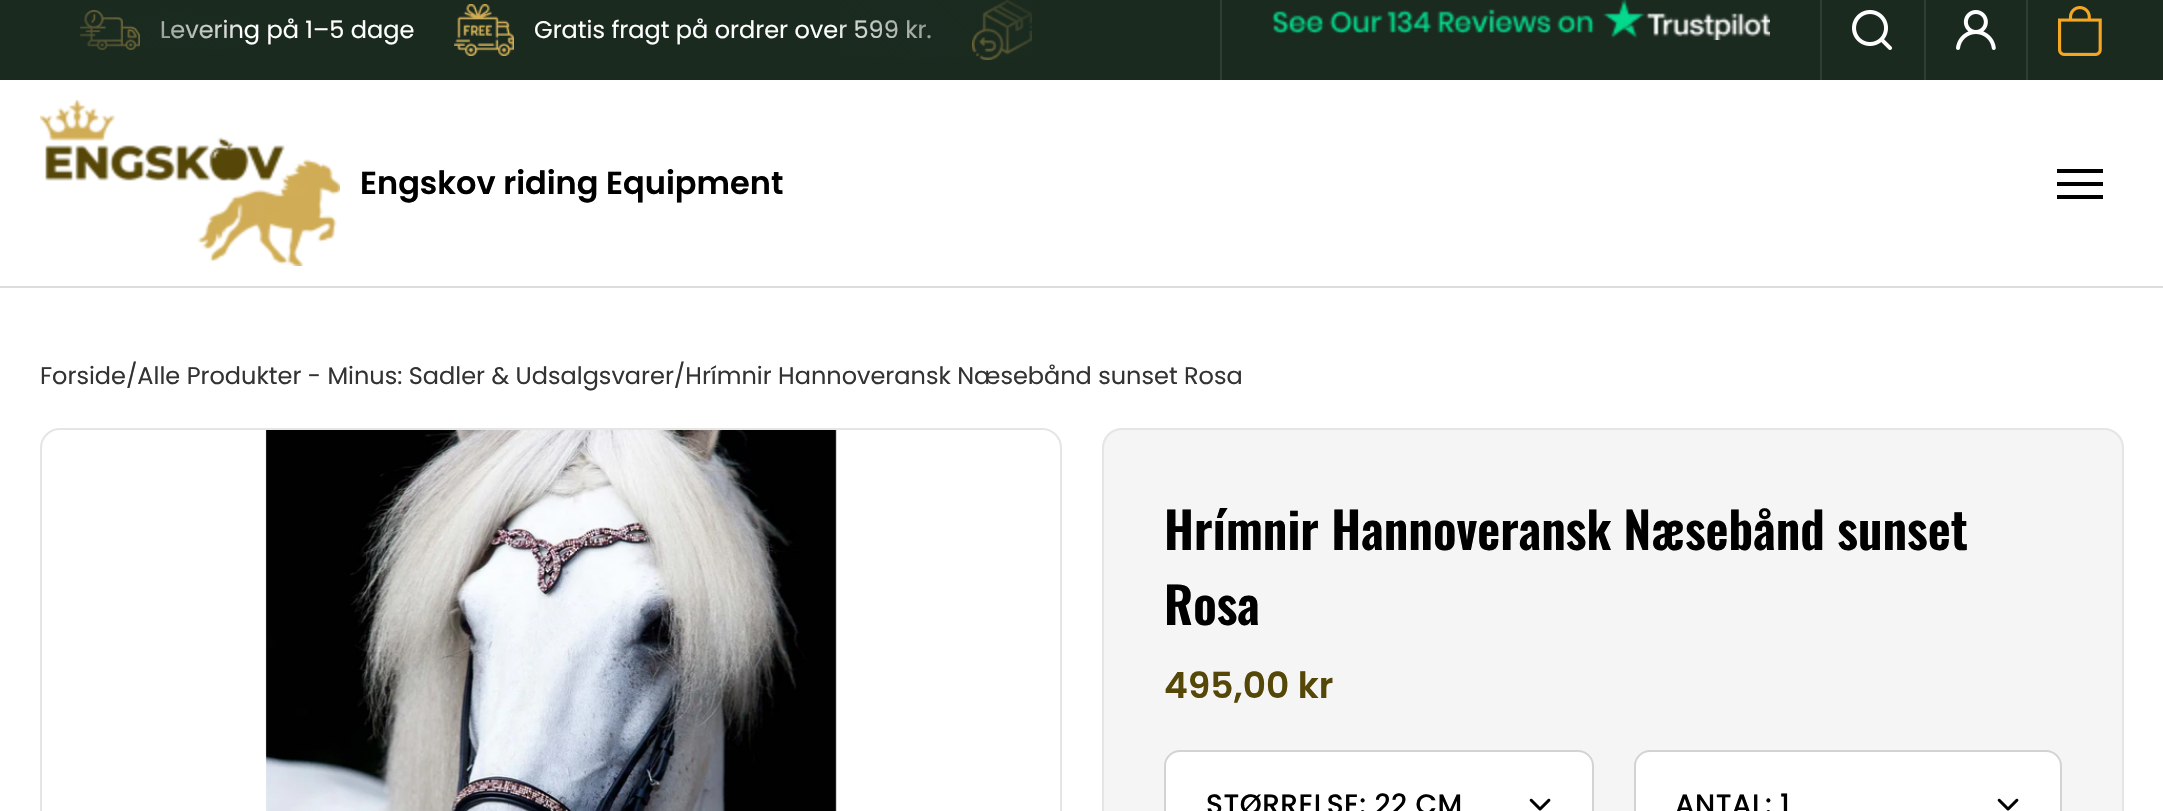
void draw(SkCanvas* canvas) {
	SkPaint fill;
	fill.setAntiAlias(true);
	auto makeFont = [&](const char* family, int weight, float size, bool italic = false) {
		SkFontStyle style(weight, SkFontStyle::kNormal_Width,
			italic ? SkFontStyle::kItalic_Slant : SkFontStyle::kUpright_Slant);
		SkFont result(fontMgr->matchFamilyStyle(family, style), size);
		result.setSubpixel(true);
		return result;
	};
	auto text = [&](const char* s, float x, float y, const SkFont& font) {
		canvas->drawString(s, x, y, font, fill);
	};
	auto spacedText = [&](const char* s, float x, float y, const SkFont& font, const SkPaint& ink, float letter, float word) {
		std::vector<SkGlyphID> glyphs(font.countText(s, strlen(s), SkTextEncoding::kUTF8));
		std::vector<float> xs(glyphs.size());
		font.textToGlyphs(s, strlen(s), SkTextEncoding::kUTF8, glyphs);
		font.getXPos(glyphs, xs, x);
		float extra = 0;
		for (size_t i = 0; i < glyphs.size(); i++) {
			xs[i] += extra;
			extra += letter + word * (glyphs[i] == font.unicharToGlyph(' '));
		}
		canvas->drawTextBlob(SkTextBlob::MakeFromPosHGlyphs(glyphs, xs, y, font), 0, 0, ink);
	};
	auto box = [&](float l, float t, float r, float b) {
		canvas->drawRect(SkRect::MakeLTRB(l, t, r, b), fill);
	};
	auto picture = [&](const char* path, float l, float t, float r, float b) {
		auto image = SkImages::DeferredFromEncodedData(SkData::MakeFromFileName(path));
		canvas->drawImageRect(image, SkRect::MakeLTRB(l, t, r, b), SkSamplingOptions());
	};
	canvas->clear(0xFFFFFFFF);
	fill.setColor(0xFFDCDCDC);
	box(0, 286, 2163, 288);
	fill.setColor(0xFF1A2A1F);
	box(0, 0, 2163, 80);
	picture("image0.png", 80, 10, 140, 50);
	picture("image1.png", 454, 4, 514, 56);
	picture("image2.png", 972, 0, 1032, 60);
	fill.setColor(0xFF2D4133);
	box(1220, 0, 1222, 80);
	picture("image3.png", 1272, 0, 1770, 40);
	box(1820, 0, 1822, 80);
	picture("image4.png", 1852, 10, 1892, 50);
	box(1924, 0, 1926, 80);
	picture("image5.png", 1956, 10, 1996, 50);
	box(2026, 0, 2028, 80);
	picture("image6.png", 2058, 6, 2102, 56);
	picture("image7.png", 40, 100, 340, 266);
	fill.setColor(0xFF000000);
	canvas->drawPath(SkPathBuilder().moveTo(2103, 169).lineTo(2103, 173).lineTo(2057, 173).lineTo(2057, 169).close().moveTo(2103, 195).lineTo(2103, 199).lineTo(2057, 199).lineTo(2057, 195).close().moveTo(2103, 182).lineTo(2103, 186).lineTo(2057, 186).lineTo(2057, 182).close().detach(), fill);
	fill.setStyle(SkPaint::kStroke_Style);
	fill.setStrokeWidth(2);
	fill.setColor(0xFFE5E5E5);
	canvas->drawRoundRect(SkRect::MakeLTRB(41, 429, 1061, 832), 19, 19, fill);
	picture("image8.png", 265, 430, 837, 811);
	fill.setStyle(SkPaint::kFill_Style);
	fill.setColor(0xFFF5F5F5);
	canvas->drawRoundRect(SkRect::MakeLTRB(1103, 429, 2123, 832), 19, 19, fill);
	fill.setStyle(SkPaint::kStroke_Style);
	fill.setColor(0xFFE5E5E5);
	canvas->drawRoundRect(SkRect::MakeLTRB(1103, 429, 2123, 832), 19, 19, fill);
	fill.setStyle(SkPaint::kFill_Style);
	fill.setColor(0xFFFFFFFF);
	canvas->drawRoundRect(SkRect::MakeLTRB(1165, 751, 1593, 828), 15, 15, fill);
	fill.setStyle(SkPaint::kStroke_Style);
	fill.setColor(0xFFD3D3D3);
	canvas->drawRoundRect(SkRect::MakeLTRB(1165, 751, 1593, 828), 15, 15, fill);
	picture("image9.png", 1529, 798, 1551, 811);
	fill.setStyle(SkPaint::kFill_Style);
	fill.setColor(0xFFFFFFFF);
	canvas->drawRoundRect(SkRect::MakeLTRB(1635, 751, 2061, 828), 15, 15, fill);
	fill.setStyle(SkPaint::kStroke_Style);
	fill.setColor(0xFFD3D3D3);
	canvas->drawRoundRect(SkRect::MakeLTRB(1635, 751, 2061, 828), 15, 15, fill);
	picture("image9.png", 1997, 798, 2019, 811);
	auto font1 = makeFont("Poppins", 400, 24);
	fill.setStyle(SkPaint::kFill_Style);
	fill.setColor(0xFFFFFFFF);
	text("Levering på 1–5 dage", 160, 38, font1);
	{
		const SkColor colors[] = {0xFF1A2A1F, 0x001A2A1F};
		const float stops[] = {0, 1};
		const SkPoint ends[] = {{75, 95}, {205, -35}};
		fill.setShader(SkGradientShader::MakeLinear(ends, colors, stops, 2, SkTileMode::kClamp));
		fill.setAlpha(255);
	}
	box(80, 10, 240, 50);
	fill.setShader(nullptr);
	fill.setColor(0xFFFFFFFF);
	text("Gratis fragt på ordrer over 599 kr.", 534, 38, font1);
	{
		const SkColor colors[] = {0x001A2A1F, 0xFF1A2A1F};
		const float stops[] = {0, 1};
		const SkPoint ends[] = {{875, 95}, {1005, -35}};
		fill.setShader(SkGradientShader::MakeLinear(ends, colors, stops, 2, SkTileMode::kClamp));
		fill.setAlpha(255);
	}
	box(840, 0, 1032, 60);
	auto font2 = makeFont("Poppins", 600, 32);
	fill.setShader(nullptr);
	fill.setColor(0xFF000000);
	text("Engskov riding Equipment", 360, 194, font2);
	fill.setColor(0xFF333333);
	text("Forside/Alle Produkter - Minus: Sadler & Udsalgsvarer/Hrímnir Hannoveransk Næsebånd sunset Rosa", 40, 384, font1);
	auto font3 = makeFont("Oswald", 600, 50);
	fill.setColor(0xFF000000);
	text("Hrímnir Hannoveransk Næsebånd sunset", 1164, 550, font3);
	text("Rosa", 1164, 625, font3);
	auto font4 = makeFont("Poppins", 600, 36);
	fill.setColor(0xFF554707);
	text("495,00 kr", 1164, 698, font4);
	auto font5 = makeFont("Poppins", 500, 28);
	fill.setColor(0xFF000000);
	spacedText("STØRRELSE: 22 CM", 1206, 814, font5, fill, 0.5f, 0);
	spacedText("ANTAL: 1", 1675, 814, font5, fill, 0.5f, 0);
}
